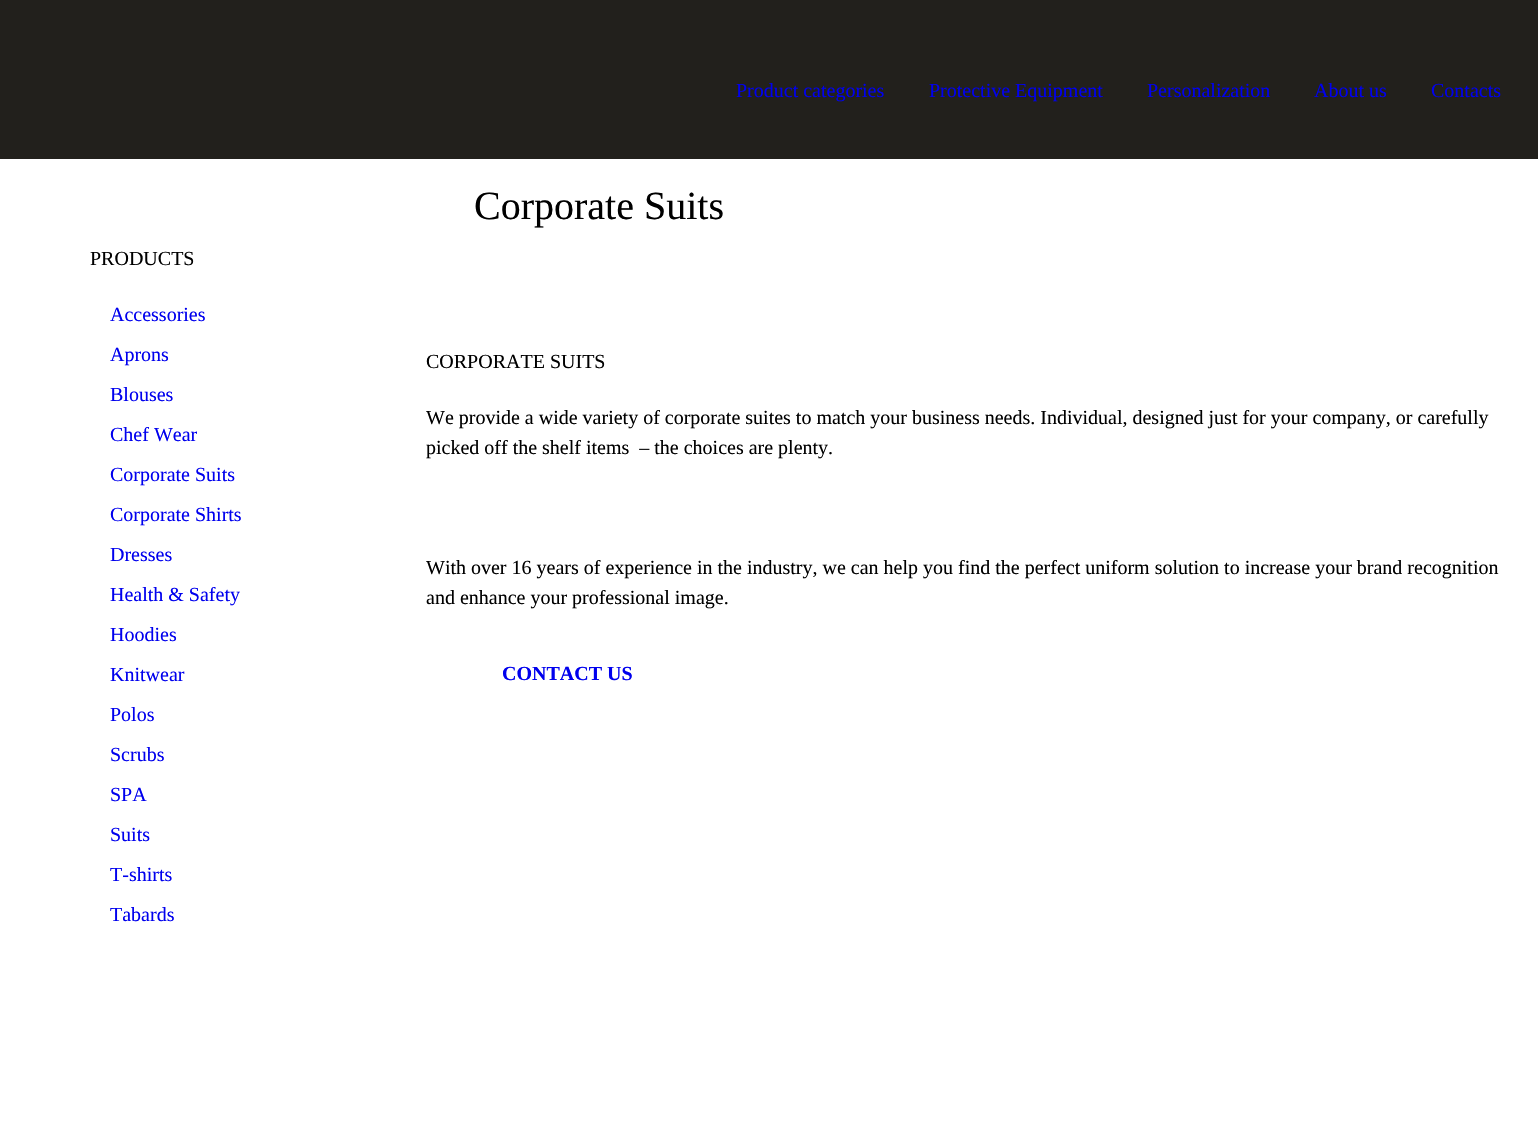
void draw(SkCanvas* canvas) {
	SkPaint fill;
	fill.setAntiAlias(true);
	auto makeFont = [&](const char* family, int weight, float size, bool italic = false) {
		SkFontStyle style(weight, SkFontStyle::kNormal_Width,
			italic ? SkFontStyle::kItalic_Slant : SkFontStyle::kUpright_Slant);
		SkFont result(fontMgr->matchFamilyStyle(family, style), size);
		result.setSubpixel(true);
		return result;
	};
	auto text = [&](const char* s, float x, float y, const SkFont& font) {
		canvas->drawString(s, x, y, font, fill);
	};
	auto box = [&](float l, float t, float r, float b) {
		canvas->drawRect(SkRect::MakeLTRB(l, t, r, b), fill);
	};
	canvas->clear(0xFFFFFFFF);
	fill.setColor(0xFF22201C);
	box(0, 0, 1538, 159);
	auto font1 = makeFont("Liberation Serif", 400, 20);
	fill.setColor(0xFF0000EE);
	text("Product categories", 736, 97, font1);
	text("Protective Equipment", 929, 97, font1);
	text("Personalization", 1147, 97, font1);
	text("About us", 1314, 97, font1);
	text("Contacts", 1431, 97, font1);
	fill.setColor(0xFF000000);
	text("PRODUCTS", 90, 265, font1);
	fill.setColor(0xFF0000EE);
	text("Accessories", 110, 321, font1);
	text("Aprons", 110, 361, font1);
	text("Blouses", 110, 401, font1);
	text("Chef Wear", 110, 441, font1);
	text("Corporate Suits", 110, 481, font1);
	text("Corporate Shirts", 110, 521, font1);
	text("Dresses", 110, 561, font1);
	text("Health & Safety", 110, 601, font1);
	text("Hoodies", 110, 641, font1);
	text("Knitwear", 110, 681, font1);
	text("Polos", 110, 721, font1);
	text("Scrubs", 110, 761, font1);
	text("SPA", 110, 801, font1);
	text("Suits", 110, 841, font1);
	text("T-shirts", 110, 881, font1);
	text("Tabards", 110, 921, font1);
	auto font2 = makeFont("Liberation Serif", 400, 40);
	fill.setColor(0xFF000000);
	text("Corporate Suits", 474, 219, font2);
	text("CORPORATE SUITS", 426, 368, font1);
	text("We provide a wide variety of corporate suites to match your business needs. Individual, designed just for your company, or carefully", 426, 424, font1);
	text("picked off the shelf items  – the choices are plenty.", 426, 454, font1);
	text("With over 16 years of experience in the industry, we can help you find the perfect uniform solution to increase your brand recognition", 426, 574, font1);
	text("and enhance your professional image.", 426, 604, font1);
	auto font3 = makeFont("Liberation Serif", 700, 20);
	fill.setColor(0xFF0000EE);
	text("CONTACT US", 502, 680, font3);
}
